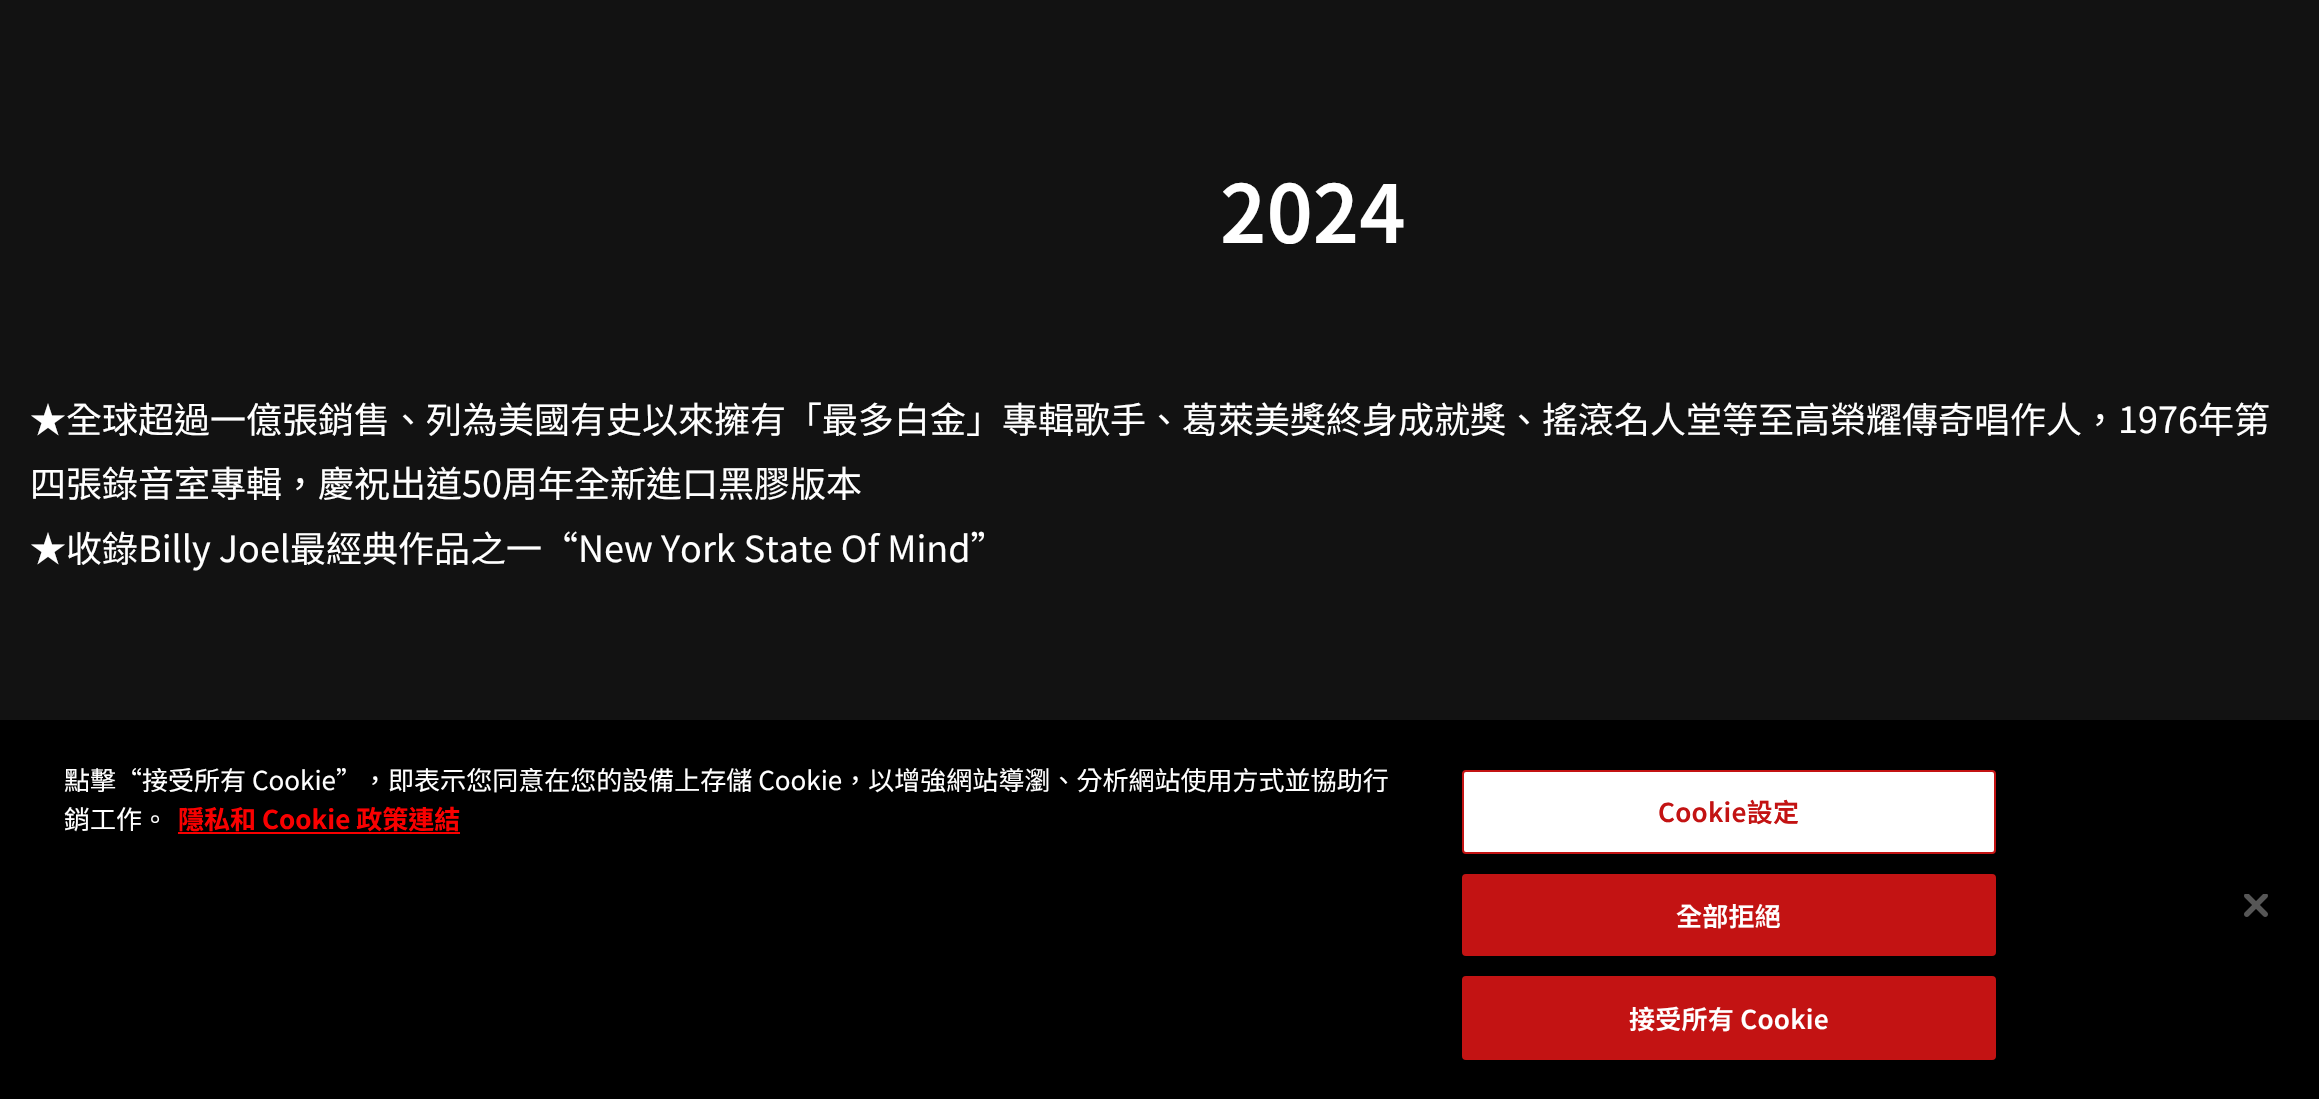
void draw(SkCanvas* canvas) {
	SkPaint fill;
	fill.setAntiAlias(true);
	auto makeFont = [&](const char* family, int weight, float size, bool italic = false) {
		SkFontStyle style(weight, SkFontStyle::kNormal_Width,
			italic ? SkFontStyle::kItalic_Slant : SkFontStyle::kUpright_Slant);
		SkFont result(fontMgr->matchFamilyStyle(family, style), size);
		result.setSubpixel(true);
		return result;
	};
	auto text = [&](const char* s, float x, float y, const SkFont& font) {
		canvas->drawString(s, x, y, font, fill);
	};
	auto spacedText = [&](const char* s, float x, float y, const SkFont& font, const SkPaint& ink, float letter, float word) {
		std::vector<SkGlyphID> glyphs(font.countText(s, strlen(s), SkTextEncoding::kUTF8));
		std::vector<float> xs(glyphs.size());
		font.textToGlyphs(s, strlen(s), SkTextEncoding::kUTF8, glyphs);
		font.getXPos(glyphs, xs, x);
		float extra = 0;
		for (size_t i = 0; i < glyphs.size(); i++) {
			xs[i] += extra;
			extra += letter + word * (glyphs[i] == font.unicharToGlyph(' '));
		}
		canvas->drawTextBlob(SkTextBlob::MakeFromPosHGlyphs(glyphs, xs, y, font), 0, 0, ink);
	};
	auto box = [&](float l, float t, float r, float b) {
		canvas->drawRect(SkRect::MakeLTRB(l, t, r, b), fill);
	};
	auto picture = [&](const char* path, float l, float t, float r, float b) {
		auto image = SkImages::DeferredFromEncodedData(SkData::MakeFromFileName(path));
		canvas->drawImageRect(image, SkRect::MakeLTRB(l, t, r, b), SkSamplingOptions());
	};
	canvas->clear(0xFF121212);
	fill.setColor(0xFF000000);
	box(0, 720, 2319, 1099);
	fill.setColor(0xFFF90000);
	box(178, 832, 460, 834);
	fill.setColor(0xFFFFFFFF);
	canvas->drawRoundRect(SkRect::MakeLTRB(1463, 771, 1995, 853), 3, 3, fill);
	fill.setStyle(SkPaint::kStroke_Style);
	fill.setStrokeWidth(2);
	fill.setColor(0xFFC31313);
	canvas->drawRoundRect(SkRect::MakeLTRB(1463, 771, 1995, 853), 3, 3, fill);
	fill.setStyle(SkPaint::kFill_Style);
	canvas->drawRoundRect(SkRect::MakeLTRB(1463, 875, 1995, 955), 3, 3, fill);
	fill.setStyle(SkPaint::kStroke_Style);
	canvas->drawRoundRect(SkRect::MakeLTRB(1463, 875, 1995, 955), 3, 3, fill);
	fill.setStyle(SkPaint::kFill_Style);
	canvas->drawRoundRect(SkRect::MakeLTRB(1463, 977, 1995, 1059), 3, 3, fill);
	fill.setStyle(SkPaint::kStroke_Style);
	canvas->drawRoundRect(SkRect::MakeLTRB(1463, 977, 1995, 1059), 3, 3, fill);
	picture("image0.png", 2244, 894, 2268, 917);
	auto font1 = makeFont("Noto Sans TC", 600, 80);
	fill.setStyle(SkPaint::kFill_Style);
	fill.setColor(0xFFFFFFFF);
	text("2024", 1220, 243, font1);
	auto font2 = makeFont("Noto Sans TC", 400, 36);
	text("★全球超過一億張銷售、列為美國有史以來擁有「最多白金」專輯歌手、葛萊美獎終身成就獎、搖滾名人堂等至高榮耀傳奇唱作人，1976年第", 30, 433, font2);
	text("四張錄音室專輯，慶祝出道50周年全新進口黑膠版本", 30, 497, font2);
	text("★收錄Billy Joel最經典作品之一“New York State Of Mind”", 30, 562, font2);
	auto font3 = makeFont("Noto Sans TC", 400, 26.02f);
	text("點擊“接受所有 Cookie”，即表示您同意在您的設備上存儲 Cookie，以增強網站導瀏、分析網站使用方式並協助行", 64, 790, font3);
	text("銷工作。", 64, 829, font3);
	auto font4 = makeFont("Noto Sans TC", 700, 26.02f);
	fill.setColor(0xFFF90000);
	text("隱私和 Cookie 政策連結", 178, 829, font4);
	auto font5 = makeFont("Noto Sans TC", 600, 26.02f);
	fill.setColor(0xFFC31313);
	spacedText("Cookie設定", 1658, 822, font5, fill, 0.25f, 0);
	fill.setColor(0xFFFFFFFF);
	spacedText("全部拒絕", 1676, 926, font5, fill, 0.25f, 0);
	spacedText("接受所有 Cookie", 1629, 1029, font5, fill, 0.25f, 0);
}
